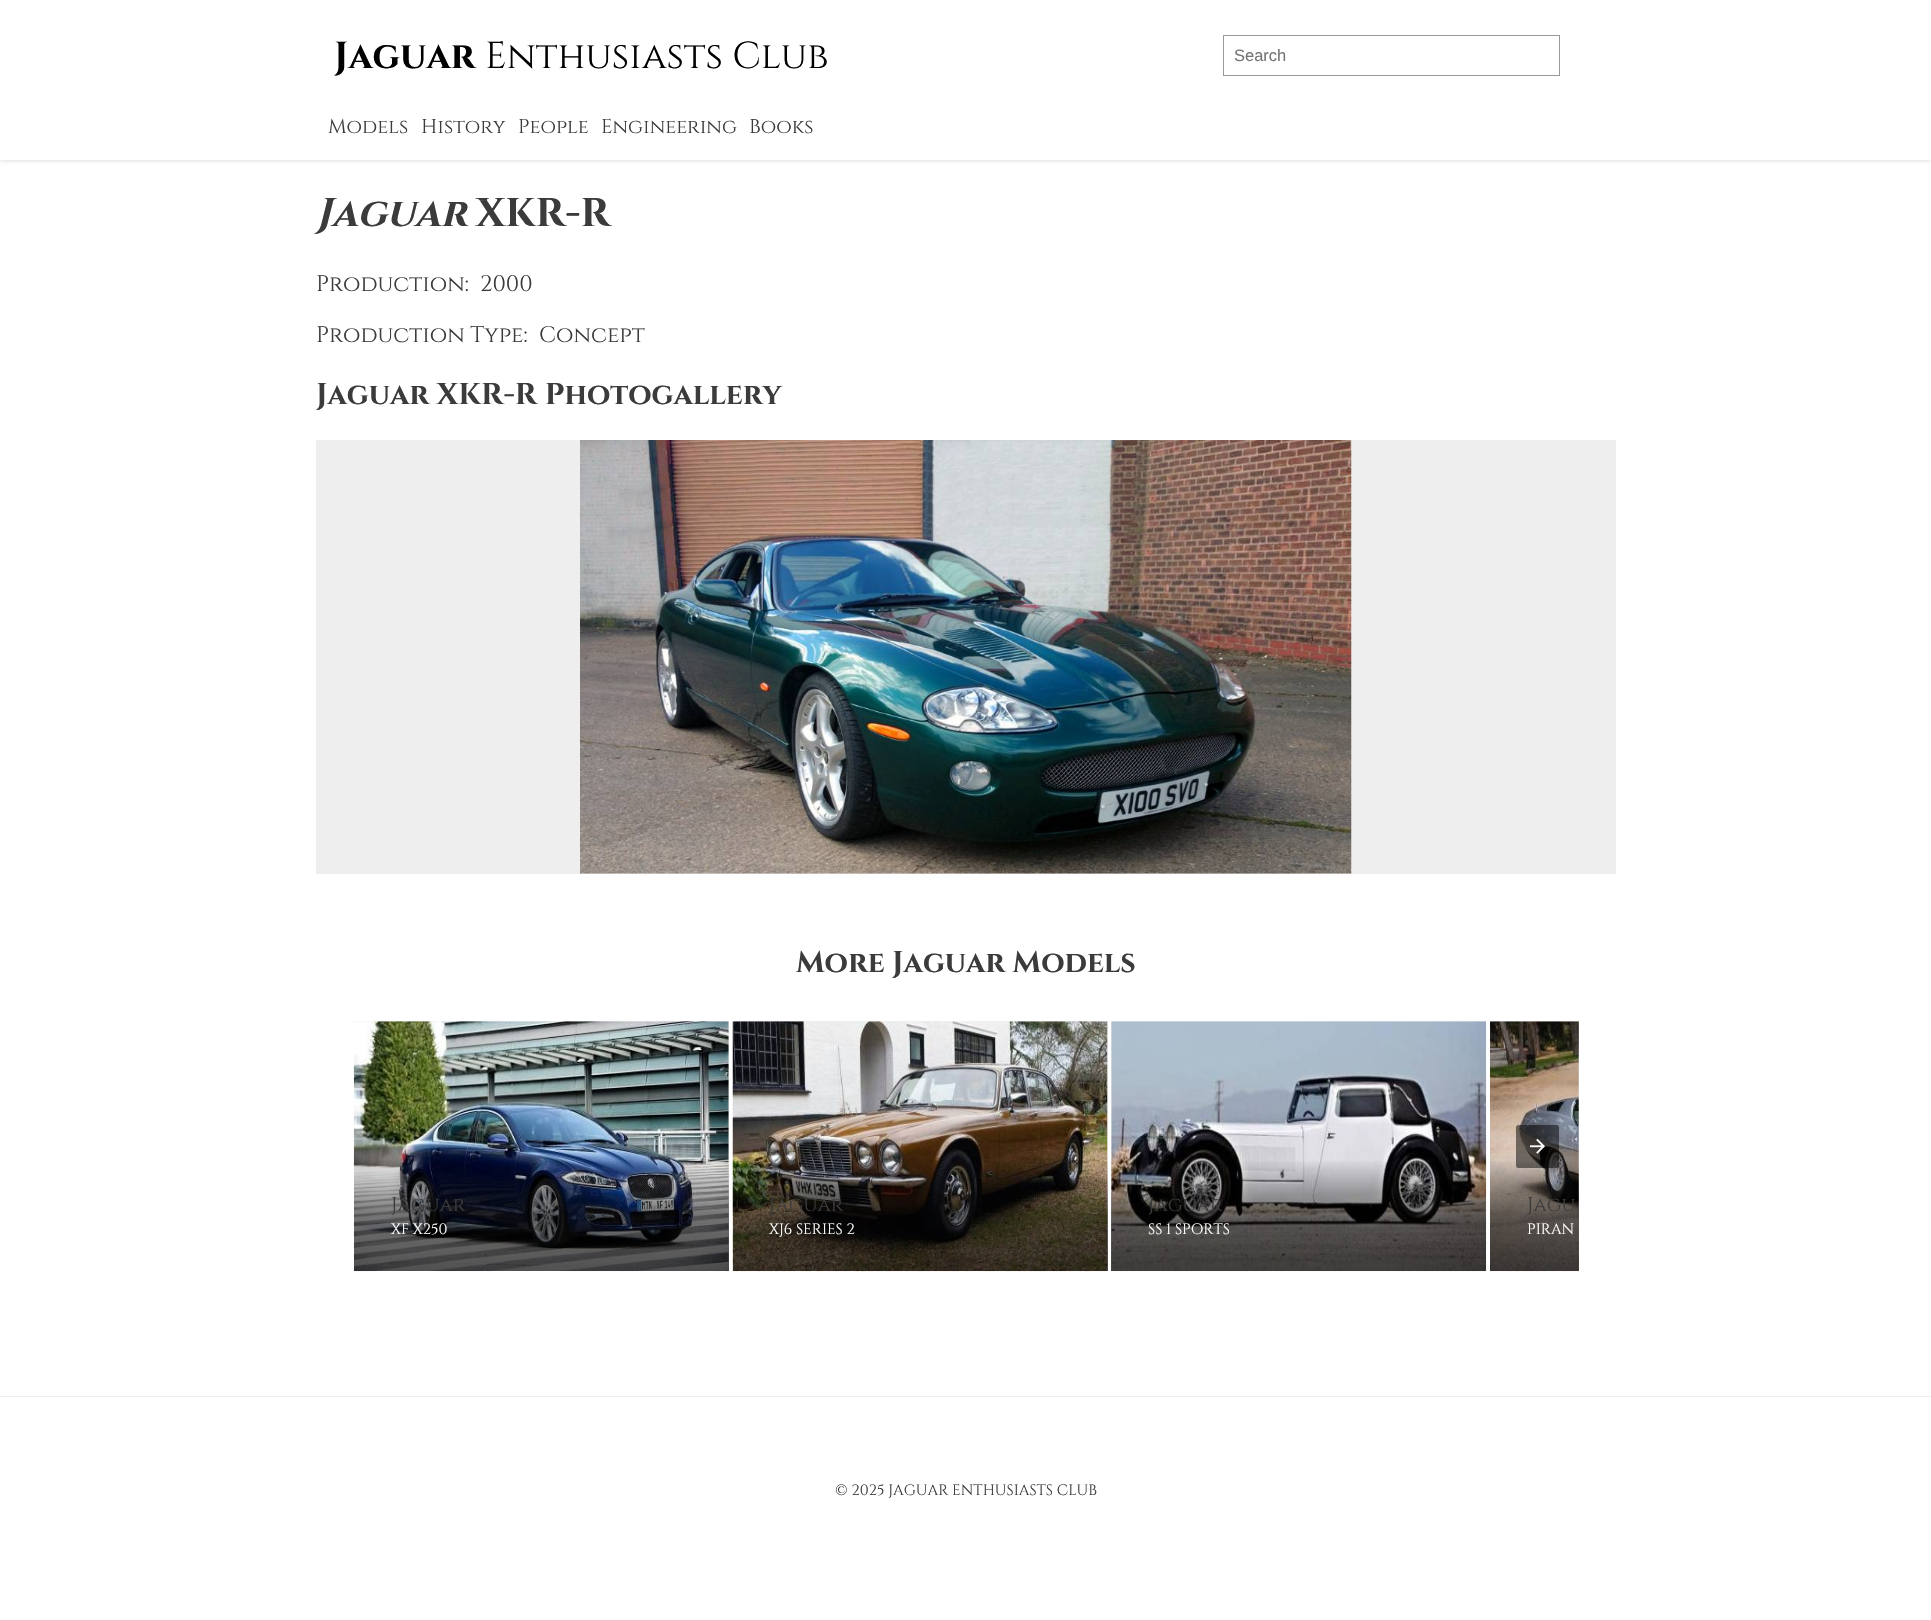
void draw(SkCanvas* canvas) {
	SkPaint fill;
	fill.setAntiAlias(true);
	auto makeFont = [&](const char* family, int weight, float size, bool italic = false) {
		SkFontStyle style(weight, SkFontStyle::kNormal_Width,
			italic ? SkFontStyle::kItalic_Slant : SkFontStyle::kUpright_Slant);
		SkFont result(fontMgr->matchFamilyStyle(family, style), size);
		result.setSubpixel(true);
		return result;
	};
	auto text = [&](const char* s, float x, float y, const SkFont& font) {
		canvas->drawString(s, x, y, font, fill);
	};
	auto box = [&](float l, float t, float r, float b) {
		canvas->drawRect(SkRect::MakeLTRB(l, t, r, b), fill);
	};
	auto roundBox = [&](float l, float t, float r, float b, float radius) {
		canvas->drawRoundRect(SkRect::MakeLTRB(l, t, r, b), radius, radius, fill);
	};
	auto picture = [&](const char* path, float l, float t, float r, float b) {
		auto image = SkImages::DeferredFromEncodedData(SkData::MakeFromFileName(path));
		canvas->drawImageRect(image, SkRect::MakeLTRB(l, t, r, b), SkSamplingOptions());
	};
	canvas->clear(0xFFFFFFFF);
	canvas->save();
	canvas->clipRect(SkRect::MakeLTRB(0, 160, 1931, 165));
	fill.setColor(0xFFD4D1D1);
	fill.setMaskFilter(SkMaskFilter::MakeBlur(kNormal_SkBlurStyle, 2.5f));
	canvas->drawRect(SkRect::MakeLTRB(0, 0, 1931, 160), fill);
	fill.setMaskFilter(nullptr);
	canvas->restore();
	fill.setStyle(SkPaint::kStroke_Style);
	fill.setStrokeWidth(1);
	fill.setColor(0xFF999999);
	canvas->drawRect(SkRect::MakeLTRB(1223.5f, 35.5f, 1559.5f, 75.5f), fill);
	fill.setStyle(SkPaint::kFill_Style);
	fill.setColor(0xFFEEEEEE);
	box(316, 440, 1616, 874);
	picture("image0.png", 580, 440, 1352, 874);
	box(1490, 1021, 1579, 1271);
	picture("image5.png", 1490, 1021, 1579, 1272);
	{
		const SkColor colors[] = {0x00000000, 0x87000000, 0xAD000000};
		const float stops[] = {0, 0.5f, 1};
		const SkPoint ends[] = {{1678, 1159}, {1678, 1271}};
		fill.setShader(SkGradientShader::MakeLinear(ends, colors, stops, 3, SkTileMode::kClamp));
		fill.setAlpha(255);
	}
	box(1490, 1161, 1579, 1271);
	fill.setShader(nullptr);
	fill.setColor(0x80000000);
	roundBox(1516, 1125, 1559, 1168, 2.5f);
	picture("image1.png", 1530, 1138, 1545, 1154);
	fill.setColor(0xFFEEEEEE);
	box(354, 1021, 729, 1271);
	picture("image2.png", 353, 1021, 729, 1272);
	{
		const SkColor colors[] = {0x00000000, 0x87000000, 0xAD000000};
		const float stops[] = {0, 0.5f, 1};
		const SkPoint ends[] = {{541, 1159}, {541, 1271}};
		fill.setShader(SkGradientShader::MakeLinear(ends, colors, stops, 3, SkTileMode::kClamp));
		fill.setAlpha(255);
	}
	box(354, 1161, 729, 1271);
	fill.setShader(nullptr);
	fill.setColor(0xFFEEEEEE);
	box(733, 1021, 1108, 1271);
	picture("image3.png", 732, 1021, 1108, 1272);
	{
		const SkColor colors[] = {0x00000000, 0x87000000, 0xAD000000};
		const float stops[] = {0, 0.5f, 1};
		const SkPoint ends[] = {{920, 1159}, {920, 1271}};
		fill.setShader(SkGradientShader::MakeLinear(ends, colors, stops, 3, SkTileMode::kClamp));
		fill.setAlpha(255);
	}
	box(733, 1161, 1108, 1271);
	fill.setShader(nullptr);
	fill.setColor(0xFFEEEEEE);
	box(1111, 1021, 1486, 1271);
	picture("image4.png", 1111, 1021, 1487, 1272);
	{
		const SkColor colors[] = {0x00000000, 0x87000000, 0xAD000000};
		const float stops[] = {0, 0.5f, 1};
		const SkPoint ends[] = {{1299, 1159}, {1299, 1271}};
		fill.setShader(SkGradientShader::MakeLinear(ends, colors, stops, 3, SkTileMode::kClamp));
		fill.setAlpha(255);
	}
	box(1111, 1161, 1486, 1271);
	fill.setShader(nullptr);
	fill.setColor(0xFFEEEEEE);
	box(0, 1396, 1931, 1397);
	auto font1 = makeFont("Cinzel", 700, 37.5f);
	fill.setColor(0xFF000000);
	text("Jaguar", 334, 68, font1);
	auto font2 = makeFont("Cinzel", 400, 37.5f);
	text("Enthusiasts Club", 485, 68, font2);
	auto font3 = makeFont("Liberation Sans", 400, 16.5f);
	fill.setColor(0xFF757575);
	text("Search", 1234, 61, font3);
	auto font4 = makeFont("Cinzel", 400, 20);
	fill.setColor(0xFF3B3B3B);
	text("Models", 328, 133, font4);
	text("History", 421, 133, font4);
	text("People", 518, 133, font4);
	text("Engineering", 601, 133, font4);
	text("Books", 749, 133, font4);
	auto font5 = makeFont("Cinzel", 700, 40, true);
	text("Jaguar", 316, 226, font5);
	auto font6 = makeFont("Cinzel", 700, 40);
	text("XKR-R", 476, 226, font6);
	auto font7 = makeFont("Cinzel", 400, 22.5f);
	text("Production:", 316, 291, font7);
	text("2000", 480, 291, font7);
	text("Production Type:", 316, 342, font7);
	text("Concept", 539, 342, font7);
	auto font8 = makeFont("Cinzel", 700, 30);
	text("Jaguar XKR-R Photogallery", 316, 404, font8);
	text("More Jaguar Models", 796, 972, font8);
	text("Jaguar", 391, 1211, font4);
	auto font9 = makeFont("Cinzel", 400, 15);
	fill.setColor(0xFFFFFFFF);
	text("XF X250", 391, 1234, font9);
	fill.setColor(0xFF3B3B3B);
	text("Jaguar", 769, 1211, font4);
	fill.setColor(0xFFFFFFFF);
	text("XJ6 SERIES 2", 769, 1234, font9);
	fill.setColor(0xFF3B3B3B);
	text("Jaguar", 1148, 1211, font4);
	fill.setColor(0xFFFFFFFF);
	text("SS 1 SPORTS", 1148, 1234, font9);
	fill.setColor(0xFF3B3B3B);
	text("Jagu", 1527, 1211, font4);
	fill.setColor(0xFFFFFFFF);
	text("PIRAN", 1527, 1234, font9);
	fill.setColor(0xFF3B3B3B);
	text("© 2025 JAGUAR ENTHUSIASTS CLUB", 835, 1495, font9);
}
